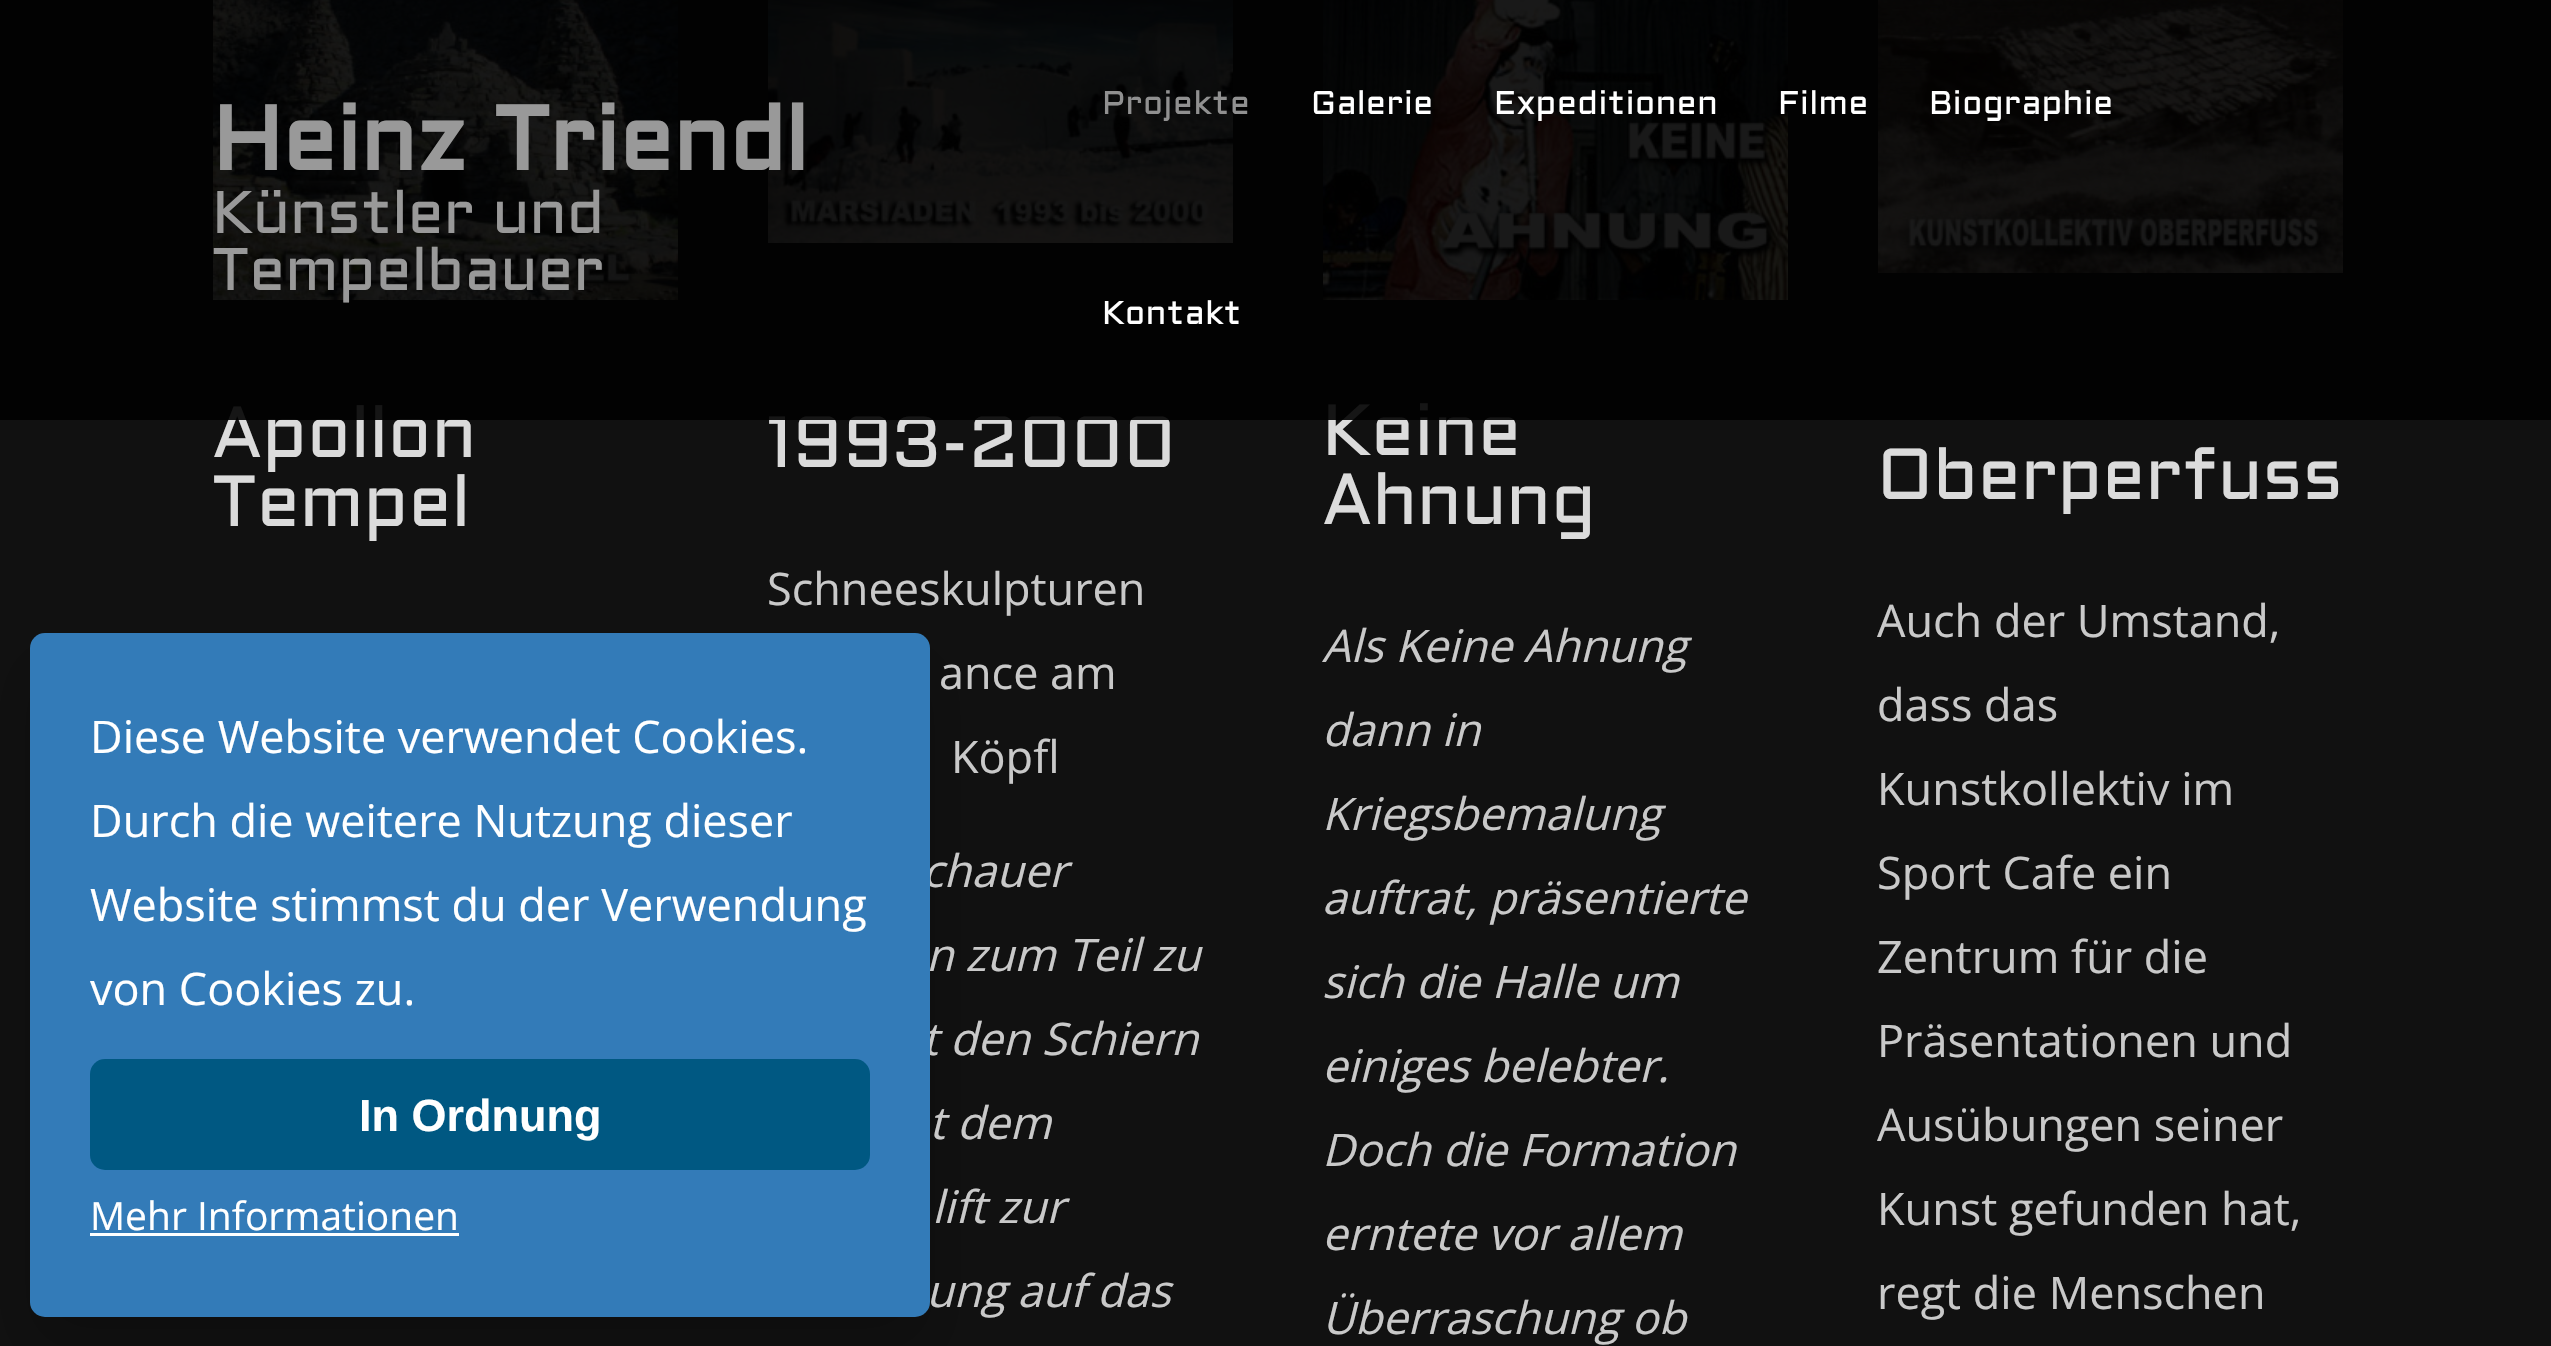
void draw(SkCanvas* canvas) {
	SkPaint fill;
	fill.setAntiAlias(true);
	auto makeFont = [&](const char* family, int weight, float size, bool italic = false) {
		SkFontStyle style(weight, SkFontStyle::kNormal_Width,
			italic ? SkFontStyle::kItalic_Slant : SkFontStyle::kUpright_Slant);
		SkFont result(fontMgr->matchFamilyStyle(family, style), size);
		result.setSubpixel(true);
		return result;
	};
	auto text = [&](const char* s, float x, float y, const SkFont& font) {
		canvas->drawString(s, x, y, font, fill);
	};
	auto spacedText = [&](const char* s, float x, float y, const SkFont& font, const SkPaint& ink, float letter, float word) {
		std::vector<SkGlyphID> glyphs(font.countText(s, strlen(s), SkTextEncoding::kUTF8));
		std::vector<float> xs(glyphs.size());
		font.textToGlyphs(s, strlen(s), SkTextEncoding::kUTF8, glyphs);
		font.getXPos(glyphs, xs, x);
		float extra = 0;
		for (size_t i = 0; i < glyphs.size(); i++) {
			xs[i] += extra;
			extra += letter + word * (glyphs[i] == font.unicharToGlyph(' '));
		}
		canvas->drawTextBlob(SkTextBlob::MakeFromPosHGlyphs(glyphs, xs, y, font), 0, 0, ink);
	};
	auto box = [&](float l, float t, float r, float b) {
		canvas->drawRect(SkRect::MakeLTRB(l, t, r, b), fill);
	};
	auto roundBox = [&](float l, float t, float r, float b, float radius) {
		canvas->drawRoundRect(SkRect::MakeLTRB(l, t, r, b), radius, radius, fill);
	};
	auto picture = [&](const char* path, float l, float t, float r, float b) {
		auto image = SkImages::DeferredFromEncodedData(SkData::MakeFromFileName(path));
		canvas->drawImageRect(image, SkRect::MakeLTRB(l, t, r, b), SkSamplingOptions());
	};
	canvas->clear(0xFF111111);
	picture("image0.png", 213, 0, 678, 300);
	picture("image1.png", 768, 0, 1233, 243);
	picture("image2.png", 1323, 0, 1788, 300);
	picture("image3.png", 1878, 0, 2343, 273);
	fill.setColor(0x33000000);
	fill.setMaskFilter(SkMaskFilter::MakeBlur(kNormal_SkBlurStyle, 30));
	canvas->drawRoundRect(SkRect::MakeLTRB(30, 663, 930, 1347), 15, 15, fill);
	fill.setMaskFilter(nullptr);
	auto font1 = makeFont("Aldrich", 400, 72);
	fill.setColor(0xFFDBDBDB);
	text("Apollon", 212, 457, font1);
	text("Tempel", 212, 526, font1);
	text("1993-2000", 767, 467, font1);
	auto font2 = makeFont("Open Sans", 400, 45);
	fill.setColor(0xFFC9C9C9);
	text("Schneeskulpturen", 767, 605, font2);
	text("ance am", 939, 689, font2);
	text("Köpfl", 951, 773, font2);
	auto font3 = makeFont("Open Sans", 400, 45, true);
	text("chauer", 922, 887, font3);
	text("n zum Teil zu", 926, 971, font3);
	text("t den Schiern", 922, 1055, font3);
	text("t dem", 929, 1139, font3);
	text("lift zur", 932, 1223, font3);
	text("ung auf das", 926, 1307, font3);
	fill.setColor(0xFFDBDBDB);
	text("Keine", 1322, 455, font1);
	fill.setColor(0xE6000000);
	box(0, 0, 2551, 420);
	auto font4 = makeFont("Aldrich", 400, 33);
	fill.setColor(0xFFFFFFFF);
	spacedText("Kontakt", 1102, 324, font4, fill, 0.6f, 0);
	spacedText("Biographie", 1929, 114, font4, fill, 0.6f, 0);
	spacedText("Filme", 1778, 114, font4, fill, 0.6f, 0);
	spacedText("Expeditionen", 1494, 114, font4, fill, 0.6f, 0);
	spacedText("Galerie", 1311, 114, font4, fill, 0.6f, 0);
	fill.setColor(0xFF909090);
	spacedText("Projekte", 1102, 114, font4, fill, 0.6f, 0);
	auto font5 = makeFont("Aldrich", 700, 90);
	fill.setColor(0xFF999999);
	text("Heinz Triendl", 212, 170, font5);
	auto font6 = makeFont("Aldrich", 400, 60);
	text("Tempelbauer", 212, 290, font6);
	text("Künstler und", 212, 233, font6);
	fill.setColor(0xFFDBDBDB);
	text("Ahnung", 1322, 524, font1);
	fill.setColor(0xFFC9C9C9);
	text("Als Keine Ahnung", 1322, 662, font3);
	text("dann in", 1322, 746, font3);
	text("Kriegsbemalung", 1322, 830, font3);
	text("auftrat, präsentierte", 1322, 914, font3);
	text("sich die Halle um", 1322, 998, font3);
	text("einiges belebter.", 1322, 1082, font3);
	text("Doch die Formation", 1322, 1166, font3);
	text("erntete vor allem", 1322, 1250, font3);
	text("Überraschung ob", 1322, 1334, font3);
	fill.setColor(0xFFDBDBDB);
	text("Oberperfuss", 1877, 499, font1);
	fill.setColor(0xFFC9C9C9);
	text("Auch der Umstand,", 1877, 637, font2);
	text("dass das", 1877, 721, font2);
	text("Kunstkollektiv im", 1877, 805, font2);
	text("Sport Cafe ein", 1877, 889, font2);
	text("Zentrum für die", 1877, 973, font2);
	text("Präsentationen und", 1877, 1057, font2);
	text("Ausübungen seiner", 1877, 1141, font2);
	text("Kunst gefunden hat,", 1877, 1225, font2);
	text("regt die Menschen", 1877, 1309, font2);
	fill.setColor(0xFF337BB8);
	roundBox(30, 633, 930, 1317, 15);
	fill.setColor(0xFFFFFFFF);
	text("Diese Website verwendet Cookies.", 90, 753, font2);
	text("Durch die weitere Nutzung dieser", 90, 837, font2);
	text("Website stimmst du der Verwendung", 90, 921, font2);
	text("von Cookies zu.", 90, 1005, font2);
	fill.setColor(0xFF005882);
	roundBox(90, 1059, 870, 1170, 15);
	auto font7 = makeFont("Liberation Sans", 700, 45);
	fill.setColor(0xFFFFFFFF);
	text("In Ordnung", 359, 1131, font7);
	auto font8 = makeFont("Open Sans", 400, 39);
	text("Mehr Informationen", 90, 1230, font8);
	box(90, 1233, 459, 1236);
}
